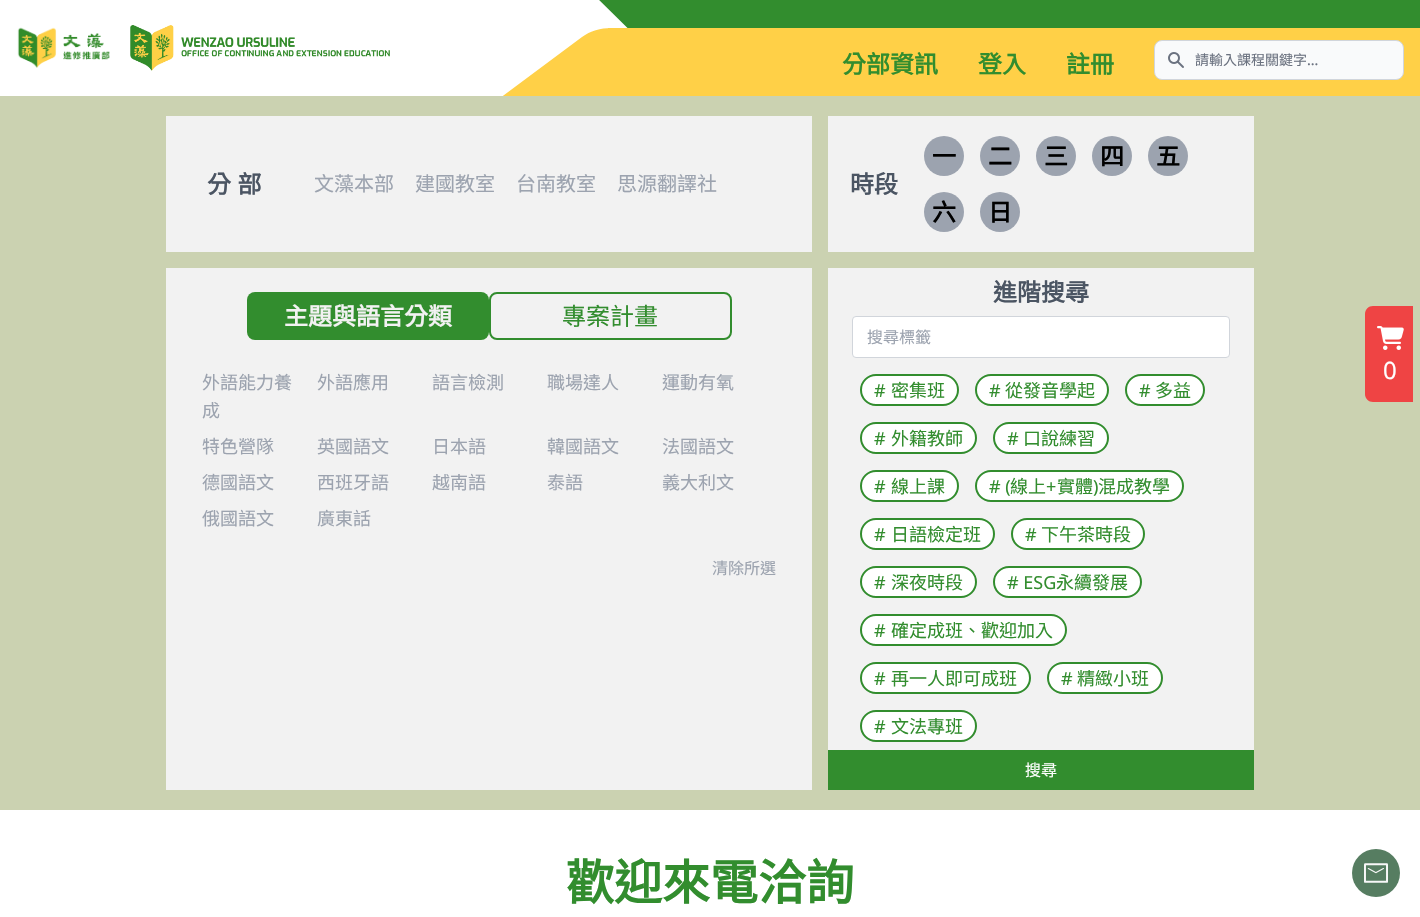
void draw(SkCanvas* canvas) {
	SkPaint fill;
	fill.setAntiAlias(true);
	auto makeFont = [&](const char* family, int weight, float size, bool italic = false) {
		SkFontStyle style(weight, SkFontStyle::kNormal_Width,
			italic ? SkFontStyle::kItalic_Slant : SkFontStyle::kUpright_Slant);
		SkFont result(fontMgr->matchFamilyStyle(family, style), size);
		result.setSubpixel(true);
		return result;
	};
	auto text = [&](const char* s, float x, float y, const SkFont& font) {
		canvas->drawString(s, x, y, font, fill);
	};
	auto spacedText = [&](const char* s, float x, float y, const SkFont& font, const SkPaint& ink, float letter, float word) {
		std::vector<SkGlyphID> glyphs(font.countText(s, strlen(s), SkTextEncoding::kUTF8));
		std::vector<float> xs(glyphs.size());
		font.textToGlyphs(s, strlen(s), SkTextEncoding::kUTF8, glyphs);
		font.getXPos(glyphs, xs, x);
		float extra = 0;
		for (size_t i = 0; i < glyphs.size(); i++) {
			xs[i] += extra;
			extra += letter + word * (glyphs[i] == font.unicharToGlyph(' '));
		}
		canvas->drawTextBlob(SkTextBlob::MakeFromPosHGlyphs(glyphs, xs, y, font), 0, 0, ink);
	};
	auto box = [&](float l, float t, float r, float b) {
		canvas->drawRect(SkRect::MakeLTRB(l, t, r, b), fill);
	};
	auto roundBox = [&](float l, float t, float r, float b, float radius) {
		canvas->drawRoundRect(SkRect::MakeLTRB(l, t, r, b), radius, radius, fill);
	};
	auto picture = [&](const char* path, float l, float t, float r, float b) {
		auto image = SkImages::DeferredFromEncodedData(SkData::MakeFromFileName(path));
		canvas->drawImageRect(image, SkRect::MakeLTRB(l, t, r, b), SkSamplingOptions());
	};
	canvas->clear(0xFFFFFFFF);
	fill.setColor(0xFF328D2E);
	canvas->drawPath(SkPathBuilder().moveTo(660, 60).cubicTo(669, 69, 681, 74, 694, 74).lineTo(1339, 74).lineTo(1339, -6).lineTo(593, -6).close().detach(), fill);
	canvas->save();
	canvas->clipRect(SkRect::MakeLTRB(32, 0, 1420, 96));
	fill.setColor(0xFFFFD047);
	canvas->drawPath(SkPathBuilder().moveTo(582, 37).cubicTo(590, 31, 601, 28, 611, 28).lineTo(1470, 28).lineTo(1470, 107).lineTo(488, 107).close().detach(), fill);
	canvas->restore();
	fill.setColor(0xFF328D2E);
	box(1339, 0, 1420, 28);
	fill.setColor(0xFFFFD047);
	box(608, 28, 610, 29);
	picture("image0.png", 17, 27, 110, 68);
	picture("image1.png", 130, 25, 390, 71);
	fill.setColor(0xFFF9FAFB);
	canvas->drawRoundRect(SkRect::MakeLTRB(1154.5f, 40.5f, 1403.5f, 79.5f), 7.5f, 7.5f, fill);
	fill.setStyle(SkPaint::kStroke_Style);
	fill.setStrokeWidth(1);
	fill.setColor(0xFFD1D5DB);
	canvas->drawRoundRect(SkRect::MakeLTRB(1154.5f, 40.5f, 1403.5f, 79.5f), 7.5f, 7.5f, fill);
	picture("image2.png", 1168, 52, 1184, 68);
	fill.setStyle(SkPaint::kFill_Style);
	fill.setColor(0xFFCBD2B1);
	box(0, 96, 1420, 810);
	fill.setColor(0xFFF2F2F2);
	box(166, 116, 812, 252);
	box(828, 116, 1254, 252);
	fill.setColor(0xFF9CA3AF);
	canvas->drawCircle(944, 156, 20, fill);
	canvas->drawCircle(1000, 156, 20, fill);
	canvas->drawCircle(1056, 156, 20, fill);
	canvas->drawCircle(1112, 156, 20, fill);
	canvas->drawCircle(1168, 156, 20, fill);
	canvas->drawCircle(944, 212, 20, fill);
	canvas->drawCircle(1000, 212, 20, fill);
	fill.setColor(0xFFF2F2F2);
	box(166, 268, 812, 790);
	fill.setColor(0xFF328D2E);
	roundBox(247, 292, 489, 340, 8);
	fill.setStyle(SkPaint::kStroke_Style);
	fill.setStrokeWidth(2);
	canvas->drawRoundRect(SkRect::MakeLTRB(490, 293, 731, 339), 7, 7, fill);
	fill.setStyle(SkPaint::kFill_Style);
	fill.setColor(0xFFF2F2F2);
	box(828, 268, 1254, 750);
	fill.setColor(0xFFFFFFFF);
	canvas->drawRoundRect(SkRect::MakeLTRB(852.5f, 316.5f, 1229.5f, 357.5f), 3.5f, 3.5f, fill);
	fill.setStyle(SkPaint::kStroke_Style);
	fill.setStrokeWidth(1);
	fill.setColor(0xFFD1D5DB);
	canvas->drawRoundRect(SkRect::MakeLTRB(852.5f, 316.5f, 1229.5f, 357.5f), 3.5f, 3.5f, fill);
	fill.setStyle(SkPaint::kFill_Style);
	fill.setColor(0xFFFFFFFF);
	canvas->drawRoundRect(SkRect::MakeLTRB(861, 375, 958, 405), 15, 15, fill);
	fill.setStyle(SkPaint::kStroke_Style);
	fill.setStrokeWidth(2);
	fill.setColor(0xFF328D2E);
	canvas->drawRoundRect(SkRect::MakeLTRB(861, 375, 958, 405), 15, 15, fill);
	fill.setStyle(SkPaint::kFill_Style);
	fill.setColor(0xFFFFFFFF);
	canvas->drawRoundRect(SkRect::MakeLTRB(976, 375, 1108, 405), 15, 15, fill);
	fill.setStyle(SkPaint::kStroke_Style);
	fill.setColor(0xFF328D2E);
	canvas->drawRoundRect(SkRect::MakeLTRB(976, 375, 1108, 405), 15, 15, fill);
	fill.setStyle(SkPaint::kFill_Style);
	fill.setColor(0xFFFFFFFF);
	canvas->drawRoundRect(SkRect::MakeLTRB(1126, 375, 1204, 405), 15, 15, fill);
	fill.setStyle(SkPaint::kStroke_Style);
	fill.setColor(0xFF328D2E);
	canvas->drawRoundRect(SkRect::MakeLTRB(1126, 375, 1204, 405), 15, 15, fill);
	fill.setStyle(SkPaint::kFill_Style);
	fill.setColor(0xFFFFFFFF);
	canvas->drawRoundRect(SkRect::MakeLTRB(861, 423, 976, 453), 15, 15, fill);
	fill.setStyle(SkPaint::kStroke_Style);
	fill.setColor(0xFF328D2E);
	canvas->drawRoundRect(SkRect::MakeLTRB(861, 423, 976, 453), 15, 15, fill);
	fill.setStyle(SkPaint::kFill_Style);
	fill.setColor(0xFFFFFFFF);
	canvas->drawRoundRect(SkRect::MakeLTRB(994, 423, 1108, 453), 15, 15, fill);
	fill.setStyle(SkPaint::kStroke_Style);
	fill.setColor(0xFF328D2E);
	canvas->drawRoundRect(SkRect::MakeLTRB(994, 423, 1108, 453), 15, 15, fill);
	fill.setStyle(SkPaint::kFill_Style);
	fill.setColor(0xFFFFFFFF);
	canvas->drawRoundRect(SkRect::MakeLTRB(861, 471, 958, 501), 15, 15, fill);
	fill.setStyle(SkPaint::kStroke_Style);
	fill.setColor(0xFF328D2E);
	canvas->drawRoundRect(SkRect::MakeLTRB(861, 471, 958, 501), 15, 15, fill);
	fill.setStyle(SkPaint::kFill_Style);
	fill.setColor(0xFFFFFFFF);
	canvas->drawRoundRect(SkRect::MakeLTRB(976, 471, 1183, 501), 15, 15, fill);
	fill.setStyle(SkPaint::kStroke_Style);
	fill.setColor(0xFF328D2E);
	canvas->drawRoundRect(SkRect::MakeLTRB(976, 471, 1183, 501), 15, 15, fill);
	fill.setStyle(SkPaint::kFill_Style);
	fill.setColor(0xFFFFFFFF);
	canvas->drawRoundRect(SkRect::MakeLTRB(861, 519, 994, 549), 15, 15, fill);
	fill.setStyle(SkPaint::kStroke_Style);
	fill.setColor(0xFF328D2E);
	canvas->drawRoundRect(SkRect::MakeLTRB(861, 519, 994, 549), 15, 15, fill);
	fill.setStyle(SkPaint::kFill_Style);
	fill.setColor(0xFFFFFFFF);
	canvas->drawRoundRect(SkRect::MakeLTRB(1012, 519, 1144, 549), 15, 15, fill);
	fill.setStyle(SkPaint::kStroke_Style);
	fill.setColor(0xFF328D2E);
	canvas->drawRoundRect(SkRect::MakeLTRB(1012, 519, 1144, 549), 15, 15, fill);
	fill.setStyle(SkPaint::kFill_Style);
	fill.setColor(0xFFFFFFFF);
	canvas->drawRoundRect(SkRect::MakeLTRB(861, 567, 976, 597), 15, 15, fill);
	fill.setStyle(SkPaint::kStroke_Style);
	fill.setColor(0xFF328D2E);
	canvas->drawRoundRect(SkRect::MakeLTRB(861, 567, 976, 597), 15, 15, fill);
	fill.setStyle(SkPaint::kFill_Style);
	fill.setColor(0xFFFFFFFF);
	canvas->drawRoundRect(SkRect::MakeLTRB(994, 567, 1141, 597), 15, 15, fill);
	fill.setStyle(SkPaint::kStroke_Style);
	fill.setColor(0xFF328D2E);
	canvas->drawRoundRect(SkRect::MakeLTRB(994, 567, 1141, 597), 15, 15, fill);
	fill.setStyle(SkPaint::kFill_Style);
	fill.setColor(0xFFFFFFFF);
	canvas->drawRoundRect(SkRect::MakeLTRB(861, 615, 1066, 645), 15, 15, fill);
	fill.setStyle(SkPaint::kStroke_Style);
	fill.setColor(0xFF328D2E);
	canvas->drawRoundRect(SkRect::MakeLTRB(861, 615, 1066, 645), 15, 15, fill);
	fill.setStyle(SkPaint::kFill_Style);
	fill.setColor(0xFFFFFFFF);
	canvas->drawRoundRect(SkRect::MakeLTRB(861, 663, 1030, 693), 15, 15, fill);
	fill.setStyle(SkPaint::kStroke_Style);
	fill.setColor(0xFF328D2E);
	canvas->drawRoundRect(SkRect::MakeLTRB(861, 663, 1030, 693), 15, 15, fill);
	fill.setStyle(SkPaint::kFill_Style);
	fill.setColor(0xFFFFFFFF);
	canvas->drawRoundRect(SkRect::MakeLTRB(1048, 663, 1162, 693), 15, 15, fill);
	fill.setStyle(SkPaint::kStroke_Style);
	fill.setColor(0xFF328D2E);
	canvas->drawRoundRect(SkRect::MakeLTRB(1048, 663, 1162, 693), 15, 15, fill);
	fill.setStyle(SkPaint::kFill_Style);
	fill.setColor(0xFFFFFFFF);
	canvas->drawRoundRect(SkRect::MakeLTRB(861, 711, 976, 741), 15, 15, fill);
	fill.setStyle(SkPaint::kStroke_Style);
	fill.setColor(0xFF328D2E);
	canvas->drawRoundRect(SkRect::MakeLTRB(861, 711, 976, 741), 15, 15, fill);
	fill.setStyle(SkPaint::kFill_Style);
	box(828, 750, 1254, 790);
	fill.setColor(0xFFEF4444);
	canvas->drawPath(SkPathBuilder().moveTo(1373, 306).lineTo(1413, 306).lineTo(1413, 402).lineTo(1373, 402).cubicTo(1368.5f, 402, 1365, 398.5f, 1365, 394).lineTo(1365, 314).cubicTo(1365, 309.5f, 1368.5f, 306, 1373, 306).close().detach(), fill);
	picture("image3.png", 1377, 326, 1404, 350);
	fill.setColor(0xFF567D61);
	canvas->drawCircle(1376, 873, 24, fill);
	picture("image4.png", 1364, 863, 1388, 883);
	auto font1 = makeFont("Noto Sans CJK TC", 700, 24);
	fill.setColor(0xFF328D2E);
	text("分部資訊", 842, 73, font1);
	text("登入", 978, 73, font1);
	text("註冊", 1066, 73, font1);
	auto font2 = makeFont("Noto Sans CJK TC", 400, 14);
	fill.setColor(0xFF6B7280);
	text("請輸入課程關鍵字", 1195, 65, font2);
	auto font3 = makeFont("Noto Sans", 500, 14);
	text("...", 1307, 65, font3);
	fill.setColor(0xFF4B5563);
	spacedText("分 部", 207, 193, font1, fill, 0, 1);
	auto font4 = makeFont("Noto Sans CJK TC", 400, 20);
	fill.setColor(0xFF9CA3AF);
	text("文藻本部", 314, 191, font4);
	text("建國教室", 415, 191, font4);
	text("台南教室", 516, 191, font4);
	text("思源翻譯社", 617, 191, font4);
	fill.setColor(0xFF4B5563);
	text("時段", 850, 193, font1);
	fill.setColor(0xFF000000);
	text("一", 932, 165, font1);
	text("二", 988, 165, font1);
	text("三", 1044, 165, font1);
	text("四", 1100, 165, font1);
	text("五", 1156, 165, font1);
	text("六", 932, 221, font1);
	text("日", 988, 221, font1);
	fill.setColor(0xFFF2F2F2);
	text("主題與語言分類", 284, 325, font1);
	auto font5 = makeFont("Noto Sans CJK TC", 400, 24);
	fill.setColor(0xFF328D2E);
	text("專案計畫", 562, 325, font5);
	auto font6 = makeFont("Noto Sans CJK TC", 400, 18);
	fill.setColor(0xFF9CA3AF);
	text("外語能力養", 202, 389, font6);
	text("成", 202, 417, font6);
	text("外語應用", 317, 389, font6);
	text("語言檢測", 432, 389, font6);
	text("職場達人", 547, 389, font6);
	text("運動有氧", 662, 389, font6);
	text("特色營隊", 202, 453, font6);
	text("英國語文", 317, 453, font6);
	text("日本語", 432, 453, font6);
	text("韓國語文", 547, 453, font6);
	text("法國語文", 662, 453, font6);
	text("德國語文", 202, 489, font6);
	text("西班牙語", 317, 489, font6);
	text("越南語", 432, 489, font6);
	text("泰語", 547, 489, font6);
	text("義大利文", 662, 489, font6);
	text("俄國語文", 202, 525, font6);
	text("廣東話", 317, 525, font6);
	auto font7 = makeFont("Noto Sans CJK TC", 400, 16);
	text("清除所選", 712, 574, font7);
	fill.setColor(0xFF4B5563);
	text("進階搜尋", 993, 301, font1);
	fill.setColor(0xFF9CA3AF);
	text("搜尋標籤", 867, 343, font7);
	auto font8 = makeFont("Noto Sans", 400, 18);
	fill.setColor(0xFF328D2E);
	text("#", 874, 397, font8);
	text("密集班", 891, 397, font6);
	text("#", 989, 397, font8);
	text("從發音學起", 1005, 397, font6);
	text("#", 1139, 397, font8);
	text("多益", 1155, 397, font6);
	text("#", 874, 445, font8);
	text("外籍教師", 891, 445, font6);
	text("#", 1007, 445, font8);
	text("口說練習", 1023, 445, font6);
	text("#", 874, 493, font8);
	text("線上課", 891, 493, font6);
	text("# (", 989, 493, font8);
	text("線上", 1010, 493, font6);
	text("+", 1046, 493, font8);
	text("實體", 1057, 493, font6);
	text(")", 1093, 493, font8);
	text("混成教學", 1098, 493, font6);
	text("#", 874, 541, font8);
	text("日語檢定班", 891, 541, font6);
	text("#", 1025, 541, font8);
	text("下午茶時段", 1041, 541, font6);
	text("#", 874, 589, font8);
	text("深夜時段", 891, 589, font6);
	text("# ESG", 1007, 589, font8);
	text("永續發展", 1056, 589, font6);
	text("#", 874, 637, font8);
	text("確定成班、歡迎加入", 891, 637, font6);
	text("#", 874, 685, font8);
	text("再一人即可成班", 891, 685, font6);
	text("#", 1061, 685, font8);
	text("精緻小班", 1077, 685, font6);
	text("#", 874, 733, font8);
	text("文法專班", 891, 733, font6);
	fill.setColor(0xFFFFFFFF);
	text("搜尋", 1025, 776, font7);
	auto font9 = makeFont("Noto Sans CJK TC", 700, 48);
	fill.setColor(0xFF328D2E);
	text("歡迎來電洽詢", 566, 900, font9);
	auto font10 = makeFont("Noto Sans", 400, 24);
	fill.setColor(0xFFFFFFFF);
	text("0", 1383, 379, font10);
}
